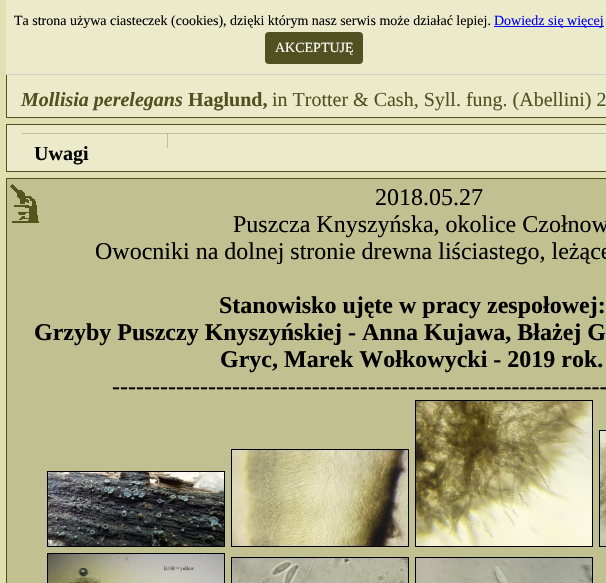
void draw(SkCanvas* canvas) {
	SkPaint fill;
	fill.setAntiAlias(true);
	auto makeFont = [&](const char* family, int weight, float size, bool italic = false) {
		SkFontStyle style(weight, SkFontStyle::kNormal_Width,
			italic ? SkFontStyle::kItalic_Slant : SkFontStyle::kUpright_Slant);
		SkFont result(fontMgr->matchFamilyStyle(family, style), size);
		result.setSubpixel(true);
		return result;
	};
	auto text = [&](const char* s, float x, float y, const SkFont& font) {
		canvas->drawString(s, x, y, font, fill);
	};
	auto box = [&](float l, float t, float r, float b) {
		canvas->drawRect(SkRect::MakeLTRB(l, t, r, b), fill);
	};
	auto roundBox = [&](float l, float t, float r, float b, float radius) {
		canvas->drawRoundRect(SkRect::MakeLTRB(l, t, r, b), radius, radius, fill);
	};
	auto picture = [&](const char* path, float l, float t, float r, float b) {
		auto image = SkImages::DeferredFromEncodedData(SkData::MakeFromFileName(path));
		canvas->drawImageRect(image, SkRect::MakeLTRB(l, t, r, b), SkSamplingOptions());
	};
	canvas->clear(0xFFE0E0B0);
	fill.setColor(0xFFEBEBCC);
	box(7, 75, 606, 117);
	fill.setStyle(SkPaint::kStroke_Style);
	fill.setStrokeWidth(1);
	fill.setColor(0xFF505020);
	canvas->drawRect(SkRect::MakeLTRB(6.5f, -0.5f, 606.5f, 117.5f), fill);
	fill.setStyle(SkPaint::kFill_Style);
	fill.setColor(0xFFEBEBCC);
	box(6, 0, 606, 74);
	fill.setColor(0xFFD3D0D0);
	box(6, 74, 606, 75);
	fill.setColor(0xFF0000EE);
	box(494, 26, 604, 27);
	fill.setColor(0xFF505020);
	roundBox(265, 32, 363, 64, 4);
	fill.setColor(0xFFEBEBCC);
	canvas->drawRect(SkRect::MakeLTRB(6.5f, 124.5f, 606.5f, 171.5f), fill);
	fill.setStyle(SkPaint::kStroke_Style);
	fill.setColor(0xFF505020);
	canvas->drawRect(SkRect::MakeLTRB(6.5f, 124.5f, 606.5f, 171.5f), fill);
	fill.setStyle(SkPaint::kFill_Style);
	fill.setColor(0xFFC0C090);
	box(22, 133, 606, 134);
	box(167, 134, 168, 148);
	canvas->drawRect(SkRect::MakeLTRB(6.5f, 178.5f, 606.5f, 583.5f), fill);
	fill.setStyle(SkPaint::kStroke_Style);
	fill.setColor(0xFF505020);
	canvas->drawRect(SkRect::MakeLTRB(6.5f, 178.5f, 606.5f, 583.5f), fill);
	picture("image0.png", 10, 184, 39, 223);
	picture("image1.png", 47, 471, 225, 547);
	picture("image2.png", 231, 449, 409, 547);
	picture("image3.png", 415, 400, 593, 547);
	picture("image4.png", 599, 430, 606, 547);
	picture("image5.png", 47, 553, 225, 583);
	picture("image6.png", 231, 557, 409, 583);
	picture("image7.png", 415, 557, 593, 583);
	auto font1 = makeFont("Liberation Serif", 400, 14);
	fill.setStyle(SkPaint::kFill_Style);
	fill.setColor(0xFF000000);
	text("Ta strona używa ciasteczek (cookies), dzięki którym nasz serwis może działać lepiej.", 14, 25, font1);
	fill.setColor(0xFF0000EE);
	text("Dowiedz się więcej", 494, 25, font1);
	fill.setColor(0xFFFFFFFF);
	text("AKCEPTUJĘ", 275, 52, font1);
	auto font2 = makeFont("Liberation Serif", 700, 20, true);
	fill.setColor(0xFF505020);
	text("Mollisia perelegans", 21, 106, font2);
	auto font3 = makeFont("Liberation Serif", 700, 20);
	text("Haglund,", 188, 106, font3);
	auto font4 = makeFont("Liberation Serif", 400, 20);
	text("in Trotter & Cash, Syll. fung. (Abellini) 2", 272, 106, font4);
	fill.setColor(0xFF000000);
	text("Uwagi", 34, 160, font3);
	auto font5 = makeFont("Liberation Serif", 400, 24);
	text("2018.05.27", 375, 205, font5);
	text("Puszcza Knyszyńska, okolice Czołnow", 233, 232, font5);
	text("Owocniki na dolnej stronie drewna liściastego, leżące", 95, 259, font5);
	auto font6 = makeFont("Liberation Serif", 700, 24);
	text("Stanowisko ujęte w pracy zespołowej:", 219, 313, font6);
	text("Grzyby Puszczy Knyszyńskiej - Anna Kujawa, Błażej G", 34, 340, font6);
	text("Gryc, Marek Wołkowycki - 2019 rok.", 220, 367, font6);
	text("--------------------------------------------------------------", 112, 394, font5);
}
